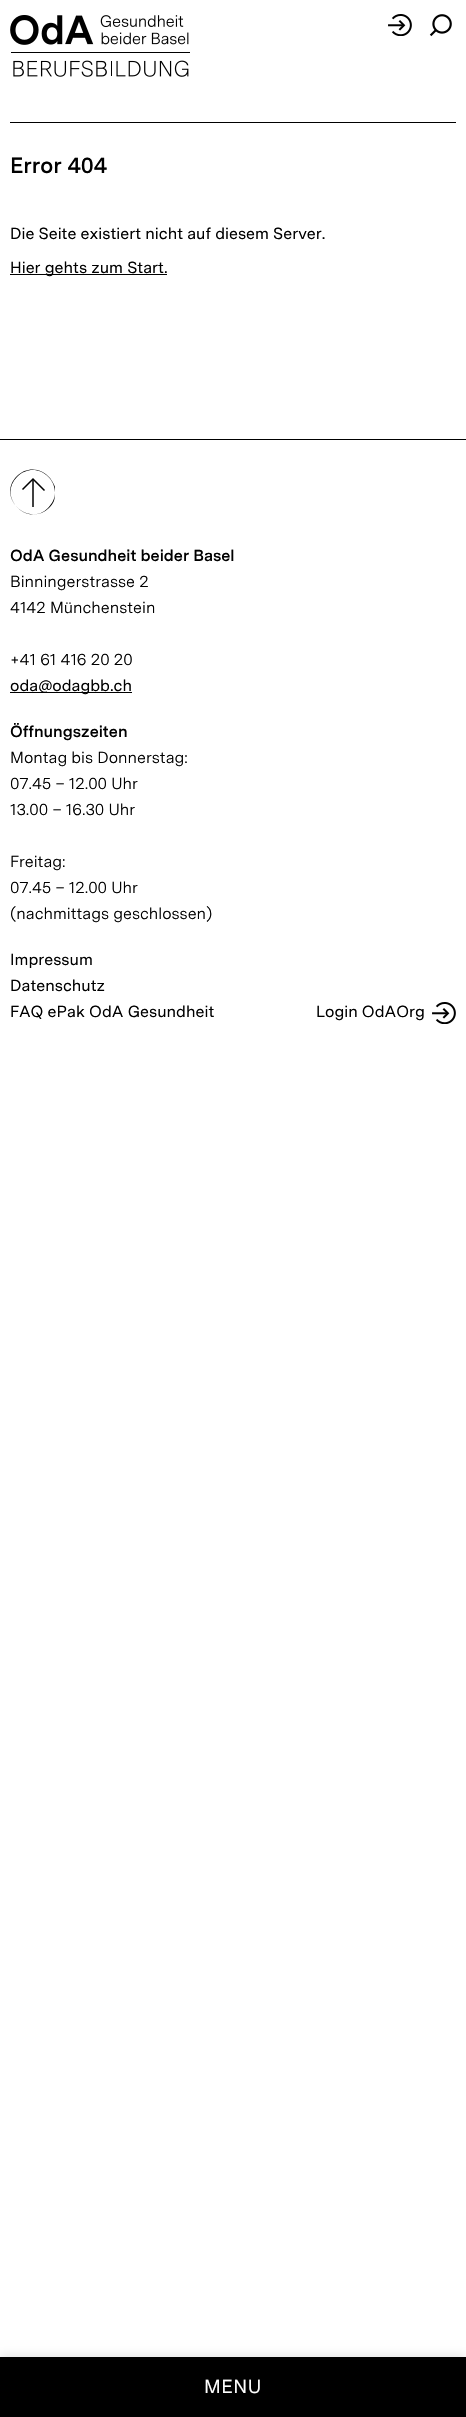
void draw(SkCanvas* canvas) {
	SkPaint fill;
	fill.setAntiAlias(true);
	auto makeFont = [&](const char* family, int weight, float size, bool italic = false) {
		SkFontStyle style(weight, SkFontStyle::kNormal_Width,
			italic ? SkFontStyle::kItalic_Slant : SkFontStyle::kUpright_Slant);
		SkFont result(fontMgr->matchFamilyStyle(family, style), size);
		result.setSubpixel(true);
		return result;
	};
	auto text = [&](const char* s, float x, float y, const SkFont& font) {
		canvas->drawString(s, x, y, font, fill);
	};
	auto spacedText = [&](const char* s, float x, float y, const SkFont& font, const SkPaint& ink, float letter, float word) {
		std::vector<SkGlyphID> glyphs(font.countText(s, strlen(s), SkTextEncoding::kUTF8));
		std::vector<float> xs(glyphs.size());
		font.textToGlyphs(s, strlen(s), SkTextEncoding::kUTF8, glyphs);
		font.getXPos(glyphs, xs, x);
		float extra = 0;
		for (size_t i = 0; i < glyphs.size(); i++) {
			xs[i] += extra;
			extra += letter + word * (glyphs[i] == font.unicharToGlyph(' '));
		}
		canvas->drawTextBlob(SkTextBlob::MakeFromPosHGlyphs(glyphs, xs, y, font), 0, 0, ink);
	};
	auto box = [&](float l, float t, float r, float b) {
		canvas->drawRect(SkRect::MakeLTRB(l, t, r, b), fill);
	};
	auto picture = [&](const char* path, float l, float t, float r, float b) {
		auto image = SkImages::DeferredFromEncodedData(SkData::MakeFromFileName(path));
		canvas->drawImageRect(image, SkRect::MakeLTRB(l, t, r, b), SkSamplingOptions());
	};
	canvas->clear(0xFFFFFFFF);
	fill.setColor(0xFF000000);
	box(10, 122, 456, 123);
	box(10, 274, 167, 275);
	box(0, 439, 466, 440);
	fill.setColor(0xFF404040);
	box(32, 479, 34, 507);
	fill.setStyle(SkPaint::kStroke_Style);
	fill.setStrokeWidth(1.5f);
	fill.setColor(0xFF000000);
	canvas->drawPath(SkPathBuilder().moveTo(44.5f, 490.5f).lineTo(33, 479).lineTo(22.5f, 489.5f).detach(), fill);
	fill.setStyle(SkPaint::kFill_Style);
	canvas->drawPath(SkPathBuilder(SkPathFillType::kEvenOdd).moveTo(17, 476).cubicTo(27, 466, 42, 468, 50, 478).cubicTo(52, 481, 54, 484, 55, 487).lineTo(55, 492).cubicTo(55, 500, 54, 503, 49, 508).cubicTo(28, 528, -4, 497, 17, 476).close().moveTo(17, 477).cubicTo(-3, 497, 28, 528, 48, 508).cubicTo(69, 487, 38, 456, 17, 477).close().detach(), fill);
	box(10, 692, 132, 693);
	picture("image0.png", 432, 1002, 456, 1024);
	picture("image1.png", 10, 15, 190, 77);
	picture("image0.png", 388, 14, 412, 36);
	picture("image2.png", 429, 14, 452, 37);
	fill.setColor(0x1A000000);
	fill.setMaskFilter(SkMaskFilter::MakeBlur(kNormal_SkBlurStyle, 5));
	canvas->drawRect(SkRect::MakeLTRB(0, 2355, 466, 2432), fill);
	fill.setMaskFilter(nullptr);
	fill.setColor(0xFF000000);
	box(0, 2357, 466, 2417);
	auto font1 = makeFont("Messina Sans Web", 600, 22);
	text("Error 404", 10, 173, font1);
	auto font2 = makeFont("Messina Sans Web", 400, 16);
	text("Die Seite existiert nicht auf diesem Server.", 10, 239, font2);
	text("Hier gehts zum Start.", 10, 273, font2);
	auto font3 = makeFont("Messina Sans Web", 600, 16);
	text("OdA Gesundheit beider Basel", 10, 561, font3);
	auto font4 = makeFont("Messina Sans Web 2", 400, 16);
	text("Binningerstrasse 2", 10, 587, font4);
	text("4142 Münchenstein", 10, 613, font4);
	text("+41 61 416 20 20", 10, 665, font4);
	text("oda@odagbb.ch", 10, 691, font2);
	text("Öffnungszeiten", 10, 737, font3);
	text("Montag bis Donnerstag:", 10, 763, font4);
	text("07.45 – 12.00 Uhr", 10, 789, font4);
	text("13.00 – 16.30 Uhr", 10, 815, font4);
	text("Freitag:", 10, 867, font4);
	text("07.45 – 12.00 Uhr", 10, 893, font4);
	text("(nachmittags geschlossen)", 10, 919, font4);
	text("Impressum", 10, 965, font2);
	text("Datenschutz", 10, 991, font2);
	text("FAQ ePak OdA Gesundheit", 10, 1017, font2);
	text("Login OdAOrg", 316, 1017, font2);
	auto font5 = makeFont("Messina Sans Web", 400, 19);
	fill.setColor(0xFFFFFFFF);
	spacedText("MENU", 204, 2393, font5, fill, 0.5f, 0);
}
